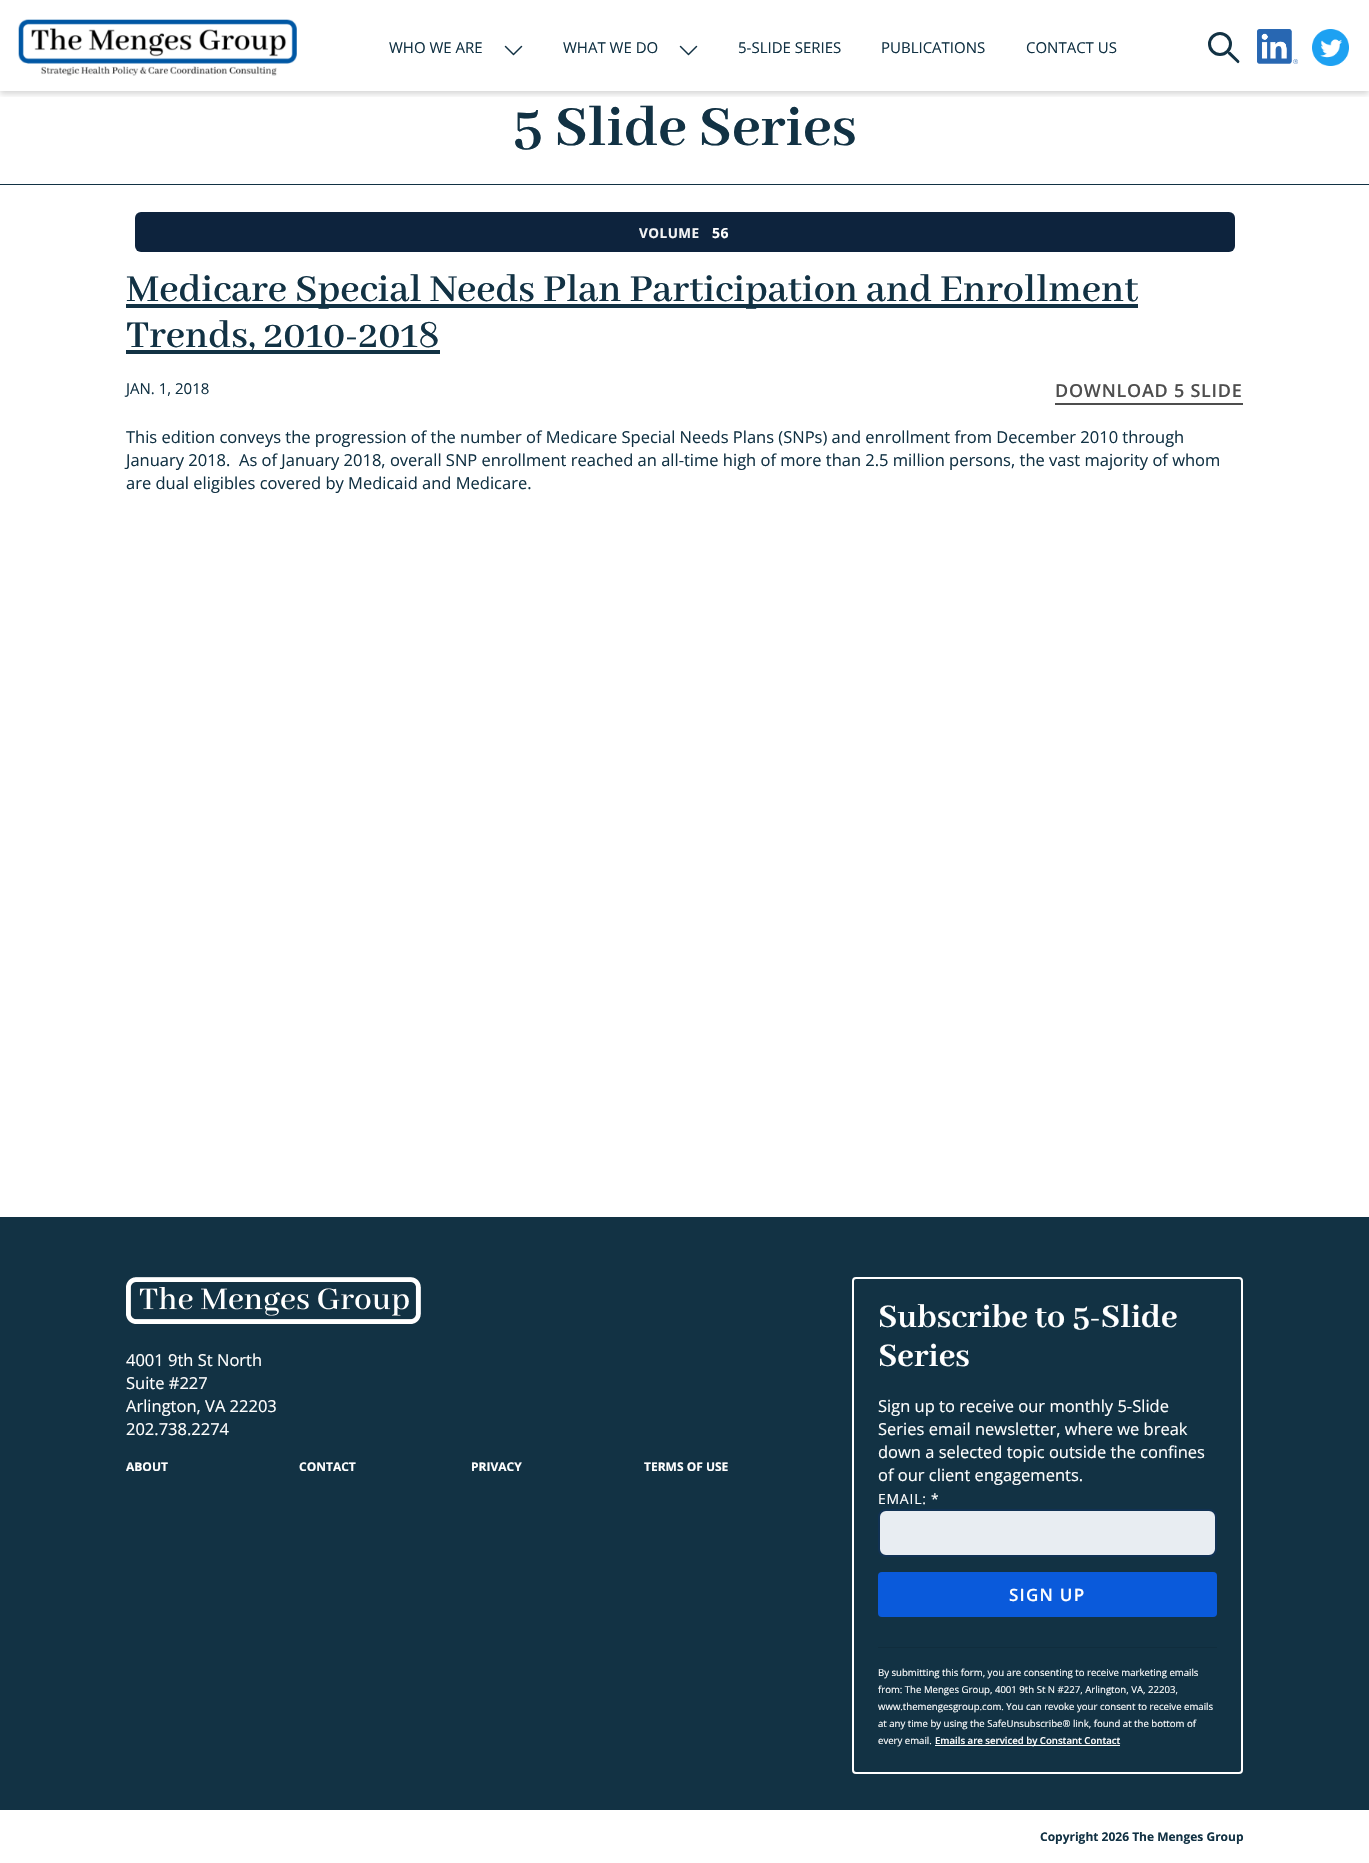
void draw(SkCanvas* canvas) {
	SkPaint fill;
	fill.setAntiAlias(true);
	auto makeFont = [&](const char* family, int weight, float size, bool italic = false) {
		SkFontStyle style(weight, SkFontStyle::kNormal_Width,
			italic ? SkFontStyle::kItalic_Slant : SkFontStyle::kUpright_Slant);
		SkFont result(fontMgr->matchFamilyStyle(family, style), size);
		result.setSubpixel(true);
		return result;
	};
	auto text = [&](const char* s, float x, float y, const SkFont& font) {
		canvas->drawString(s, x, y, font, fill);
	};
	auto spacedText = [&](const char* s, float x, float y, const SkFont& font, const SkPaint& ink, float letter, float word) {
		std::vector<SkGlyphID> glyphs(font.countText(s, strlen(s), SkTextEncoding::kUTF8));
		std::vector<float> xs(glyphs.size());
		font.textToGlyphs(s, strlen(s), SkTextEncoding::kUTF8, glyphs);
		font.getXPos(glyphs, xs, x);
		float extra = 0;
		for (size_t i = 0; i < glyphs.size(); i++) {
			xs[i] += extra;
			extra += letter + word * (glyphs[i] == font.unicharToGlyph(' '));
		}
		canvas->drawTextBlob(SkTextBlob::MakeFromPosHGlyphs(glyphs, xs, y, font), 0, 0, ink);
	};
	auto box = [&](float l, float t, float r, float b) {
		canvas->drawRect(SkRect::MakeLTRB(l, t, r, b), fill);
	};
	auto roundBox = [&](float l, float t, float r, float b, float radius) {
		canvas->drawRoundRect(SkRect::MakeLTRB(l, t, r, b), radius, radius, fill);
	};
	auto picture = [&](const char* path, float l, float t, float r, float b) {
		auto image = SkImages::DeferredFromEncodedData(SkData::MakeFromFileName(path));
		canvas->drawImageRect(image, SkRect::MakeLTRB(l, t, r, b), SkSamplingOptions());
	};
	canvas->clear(0xFFFFFFFF);
	canvas->save();
	canvas->clipRect(SkRect::MakeLTRB(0, 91, 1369, 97));
	fill.setColor(0x29000000);
	fill.setMaskFilter(SkMaskFilter::MakeBlur(kNormal_SkBlurStyle, 3));
	canvas->drawRect(SkRect::MakeLTRB(0, 3, 1369, 94), fill);
	fill.setMaskFilter(nullptr);
	canvas->restore();
	picture("image0.png", 18, 19, 297, 76);
	fill.setStyle(SkPaint::kStroke_Style);
	fill.setStrokeWidth(1.5f);
	fill.setStrokeCap(SkPaint::kRound_Cap);
	fill.setColor(0xFF123244);
	canvas->drawPath(SkPathBuilder().moveTo(521.5f, 46.5f).lineTo(513.5f, 54.5f).moveTo(505.5f, 46.5f).lineTo(513.5f, 54.5f).detach(), fill);
	canvas->drawPath(SkPathBuilder().moveTo(696.5f, 46.5f).lineTo(688.5f, 54.5f).moveTo(680.5f, 46.5f).lineTo(688.5f, 54.5f).detach(), fill);
	fill.setStrokeWidth(3);
	fill.setStrokeCap(SkPaint::kButt_Cap);
	canvas->drawCircle(1220, 44, 10.5f, fill);
	fill.setStyle(SkPaint::kFill_Style);
	canvas->drawPath(SkPathBuilder().moveTo(1228.5f, 52).cubicTo(1229, 51.5f, 1230, 51.5f, 1230.5f, 52).lineTo(1239, 60.5f).cubicTo(1239.5f, 61, 1239.5f, 62, 1239, 62.5f).cubicTo(1238.5f, 63.5f, 1237.5f, 63.5f, 1237, 62.5f).lineTo(1228.5f, 54.5f).cubicTo(1227.5f, 53.5f, 1227.5f, 52.5f, 1228.5f, 52).close().detach(), fill);
	picture("image1.png", 1257, 29, 1298, 64);
	picture("image2.png", 1312, 29, 1349, 66);
	box(0, 184, 1369, 185);
	fill.setColor(0xFF0D233D);
	roundBox(135, 212, 1235, 252, 6);
	fill.setColor(0xFF123244);
	box(126, 304, 1138, 308);
	box(126, 350, 440, 354);
	fill.setColor(0xFF4E4E4E);
	box(1055, 403, 1243, 405);
	fill.setColor(0xFF123244);
	box(0, 1217, 1369, 1810);
	picture("image3.png", 126, 1277, 421, 1324);
	fill.setStyle(SkPaint::kStroke_Style);
	fill.setStrokeWidth(2);
	fill.setColor(0xFFFFFFFF);
	canvas->drawRoundRect(SkRect::MakeLTRB(853, 1278, 1242, 1773), 3, 3, fill);
	fill.setStyle(SkPaint::kFill_Style);
	fill.setColor(0xFFE8EDF2);
	canvas->drawRoundRect(SkRect::MakeLTRB(879, 1510, 1216, 1556), 7, 7, fill);
	fill.setStyle(SkPaint::kStroke_Style);
	fill.setColor(0xFF113254);
	canvas->drawRoundRect(SkRect::MakeLTRB(879, 1510, 1216, 1556), 7, 7, fill);
	fill.setStyle(SkPaint::kFill_Style);
	fill.setColor(0xFF0A5ADB);
	roundBox(878, 1572, 1217, 1617, 4);
	fill.setColor(0xFF102D3D);
	box(878, 1647, 1217, 1648);
	fill.setColor(0xFFFFFFFF);
	box(935, 1745, 1120, 1746);
	auto font1 = makeFont("Open Sans", 400, 15);
	fill.setColor(0xFF123244);
	text("WHO WE ARE", 389, 53, font1);
	text("WHAT WE DO", 563, 53, font1);
	text("5-SLIDE SERIES", 738, 53, font1);
	text("PUBLICATIONS", 881, 53, font1);
	text("CONTACT US", 1026, 53, font1);
	auto font2 = makeFont("Abhaya Libre", 700, 62);
	text("5 Slide Series", 512, 145, font2);
	auto font3 = makeFont("Open Sans", 700, 13.5f);
	fill.setColor(0xFFF3F4F5);
	spacedText("VOLUME", 639, 238, font3, fill, 0.5f, 0);
	auto font4 = makeFont("Open Sans", 700, 14);
	fill.setColor(0xFFFFFFFF);
	spacedText("56", 712, 238, font4, fill, 0.5f, 0);
	auto font5 = makeFont("Abhaya Libre", 600, 42);
	fill.setColor(0xFF123244);
	text("Medicare Special Needs Plan Participation and Enrollment", 126, 301, font5);
	text("Trends, 2010-2018", 126, 347, font5);
	text("JAN. 1, 2018", 126, 394, font1);
	auto font6 = makeFont("Open Sans", 600, 18);
	fill.setColor(0xFF4E4E4E);
	spacedText("DOWNLOAD 5 SLIDE", 1055, 397, font6, fill, 0.75f, 0);
	auto font7 = makeFont("Open Sans", 400, 16.5f);
	fill.setColor(0xFF123244);
	text("This edition conveys the progression of the number of Medicare Special Needs Plans (SNPs) and enrollment from December 2010 through", 126, 443, font7);
	text("January 2018.  As of January 2018, overall SNP enrollment reached an all-time high of more than 2.5 million persons, the vast majority of whom", 126, 466, font7);
	text("are dual eligibles covered by Medicaid and Medicare.", 126, 489, font7);
	fill.setColor(0xFFFFFFFF);
	text("4001 9th St North", 126, 1366, font7);
	text("Suite #227", 126, 1389, font7);
	text("Arlington, VA 22203", 126, 1412, font7);
	text("202.738.2274", 126, 1435, font7);
	auto font8 = makeFont("Open Sans", 700, 12);
	text("ABOUT", 126, 1471, font8);
	text("CONTACT", 299, 1471, font8);
	text("PRIVACY", 471, 1471, font8);
	text("TERMS OF USE", 644, 1471, font8);
	auto font9 = makeFont("Abhaya Libre", 700, 36);
	text("Subscribe to 5-Slide", 878, 1327, font9);
	text("Series", 878, 1366, font9);
	text("Sign up to receive our monthly 5-Slide", 878, 1412, font7);
	text("Series email newsletter, where we break", 878, 1435, font7);
	text("down a selected topic outside the confines", 878, 1458, font7);
	text("of our client engagements.", 878, 1481, font7);
	auto font10 = makeFont("Open Sans", 400, 14);
	spacedText("EMAIL: *", 878, 1504, font10, fill, 0.75f, 0);
	auto font11 = makeFont("Open Sans", 600, 17);
	spacedText("SIGN UP", 1009, 1601, font11, fill, 1.25f, 0);
	auto font12 = makeFont("Open Sans", 400, 9.6f);
	text("By submitting this form, you are consenting to receive marketing emails", 878, 1676, font12);
	text("from: The Menges Group, 4001 9th St N #227, Arlington, VA, 22203,", 878, 1693, font12);
	text("www.themengesgroup.com. You can revoke your consent to receive emails", 878, 1710, font12);
	text("at any time by using the SafeUnsubscribe® link, found at the bottom of", 878, 1727, font12);
	text("every email.", 878, 1744, font12);
	auto font13 = makeFont("Open Sans", 600, 9.6f);
	text("Emails are serviced by Constant Contact", 935, 1744, font13);
	fill.setColor(0xFF123244);
	text("Copyright 2026 The Menges Group", 1040, 1841, font8);
}
